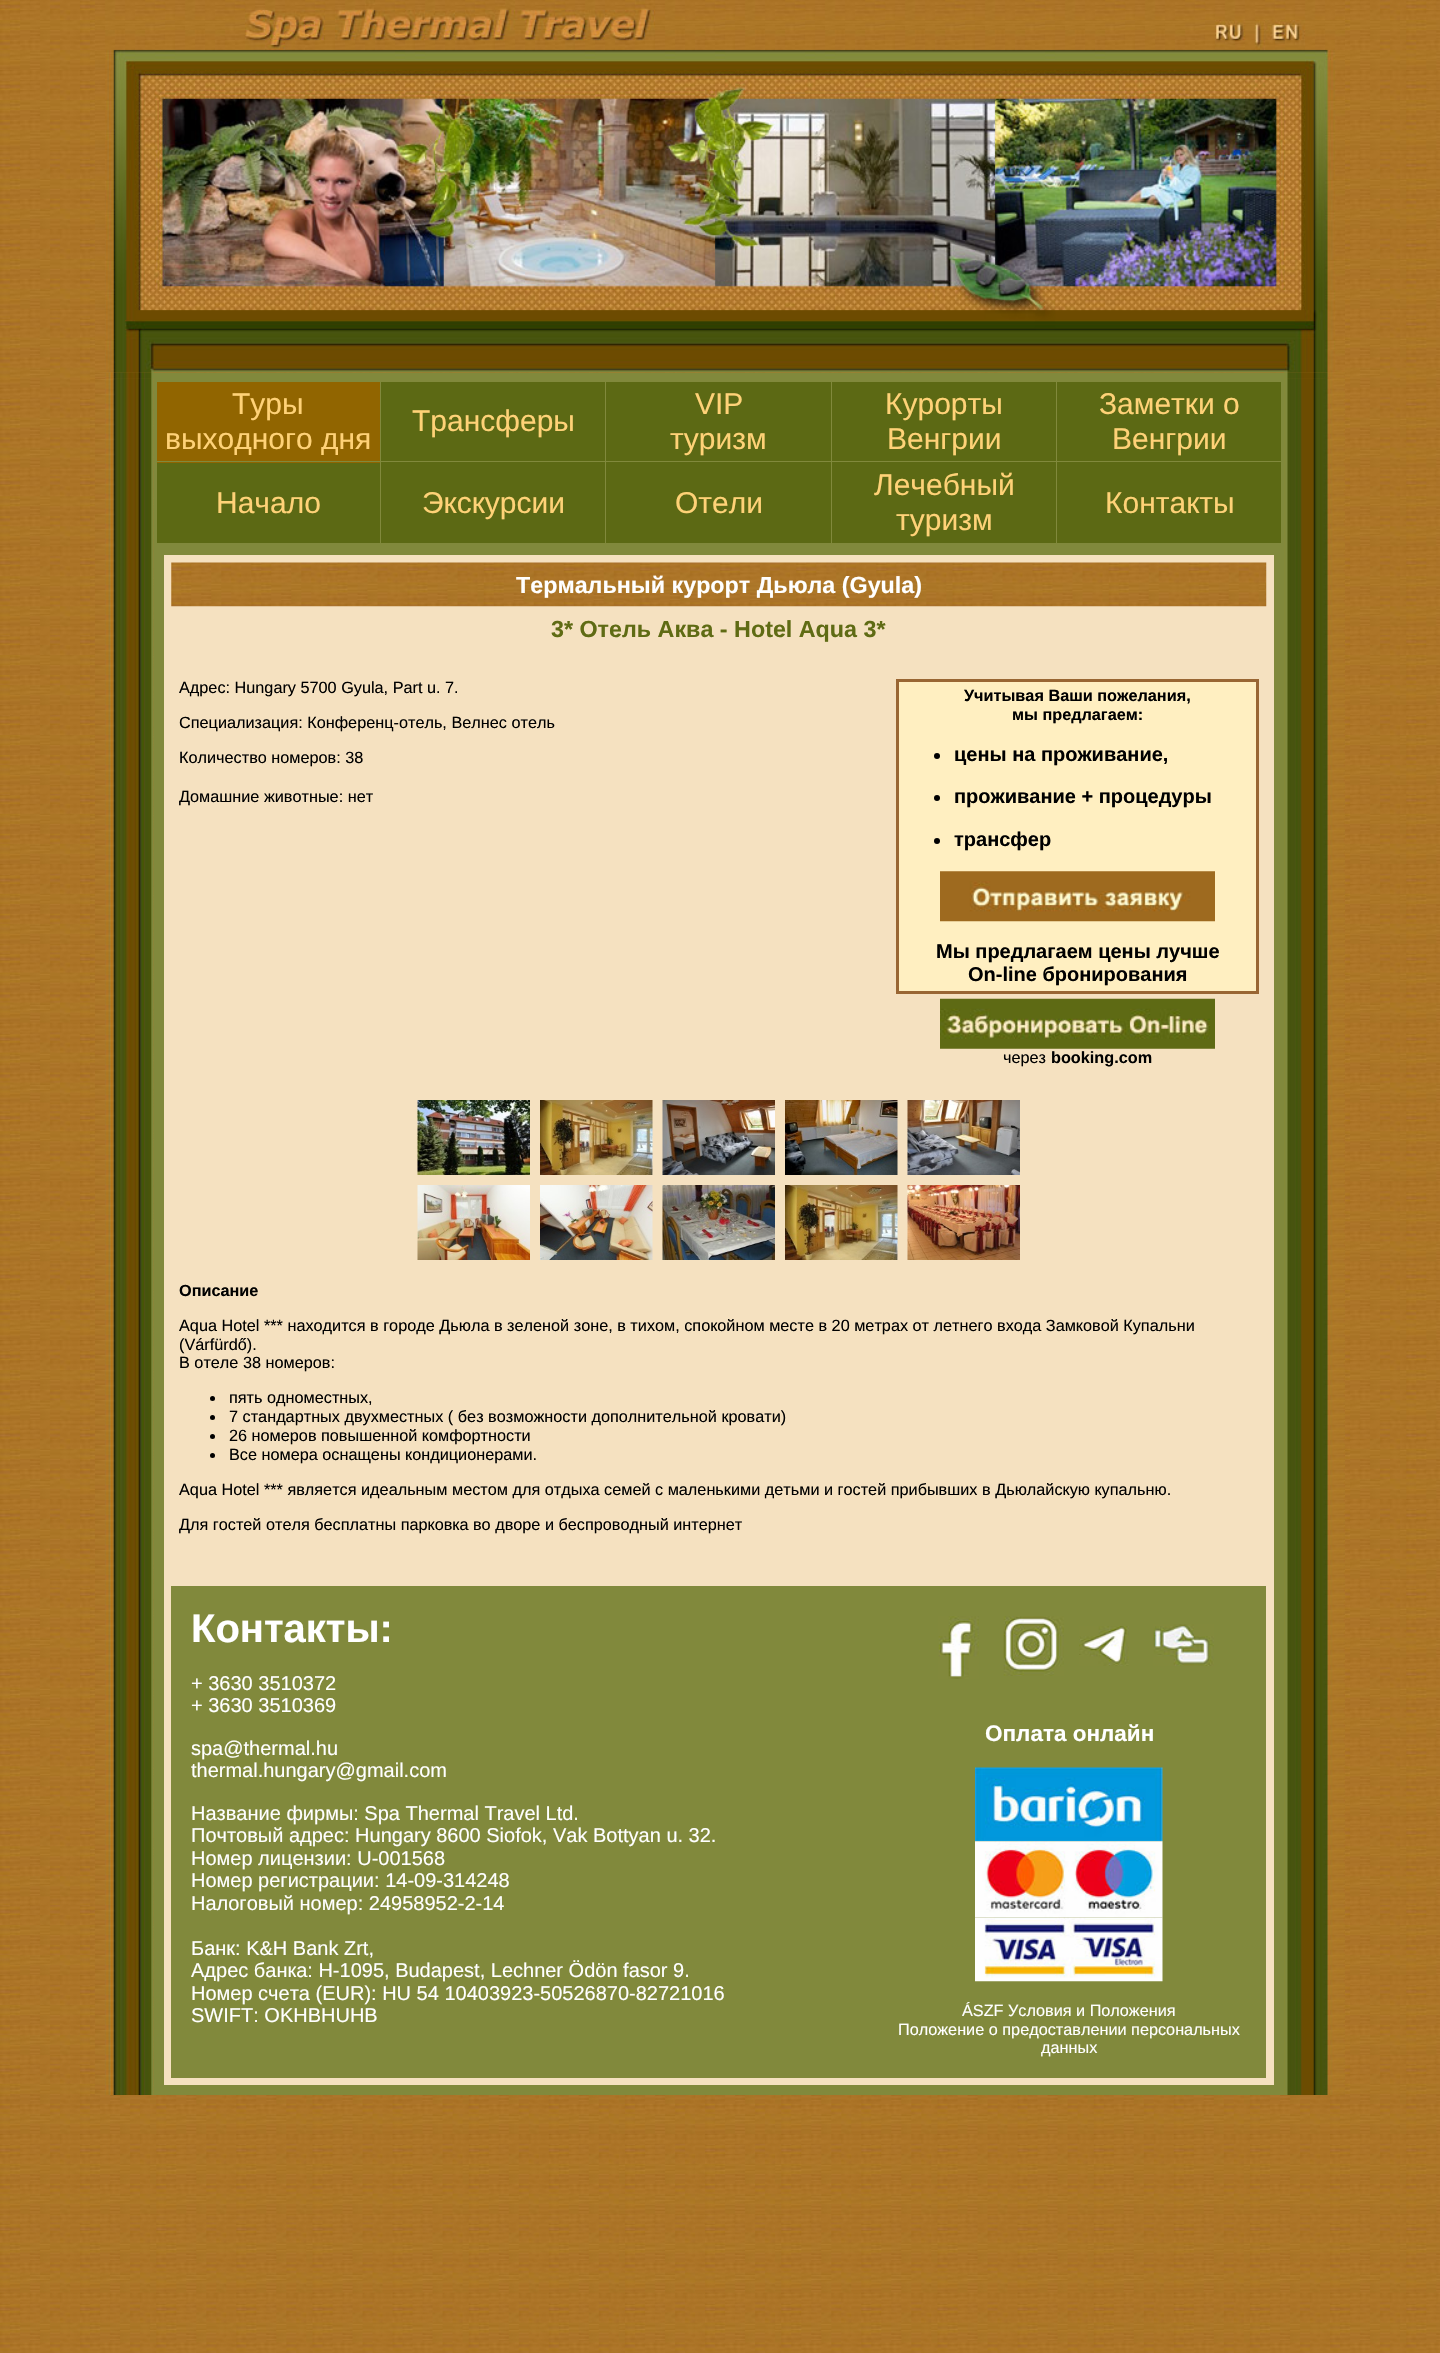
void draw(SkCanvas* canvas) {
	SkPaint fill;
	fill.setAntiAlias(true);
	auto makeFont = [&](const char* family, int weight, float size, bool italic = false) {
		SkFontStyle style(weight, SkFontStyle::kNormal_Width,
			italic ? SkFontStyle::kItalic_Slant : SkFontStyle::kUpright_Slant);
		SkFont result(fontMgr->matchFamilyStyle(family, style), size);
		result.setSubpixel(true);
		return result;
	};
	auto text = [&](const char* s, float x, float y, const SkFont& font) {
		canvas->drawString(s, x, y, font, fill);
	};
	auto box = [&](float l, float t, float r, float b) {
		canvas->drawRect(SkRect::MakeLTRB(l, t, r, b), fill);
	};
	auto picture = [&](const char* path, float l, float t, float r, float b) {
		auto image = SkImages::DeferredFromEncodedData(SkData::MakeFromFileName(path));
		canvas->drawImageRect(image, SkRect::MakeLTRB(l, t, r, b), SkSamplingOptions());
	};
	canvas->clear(0xFFFFFFFF);
	picture("image0.png", 0, 0, 1440, 2353);
	picture("image2.png", 95, 372, 154, 379);
	fill.setColor(0xFF81893C);
	box(154, 373, 1284, 379);
	picture("image4.png", 1283, 372, 1345, 379);
	picture("image1.png", 95, 0, 1345, 373);
	picture("image6.png", 95, 378, 154, 545);
	picture("image3.png", 95, 372, 154, 379);
	picture("image7.png", 1284, 378, 1345, 545);
	picture("image5.png", 1284, 372, 1345, 379);
	fill.setColor(0xFF5C6914);
	box(157, 382, 1281, 543);
	fill.setColor(0xFF916500);
	box(157, 382, 380, 463);
	fill.setColor(0xFF81893C);
	box(1056, 461, 1284, 462);
	box(1056, 461, 1057, 545);
	box(831, 461, 1058, 462);
	box(831, 461, 832, 545);
	box(605, 461, 833, 462);
	box(605, 461, 606, 545);
	box(380, 461, 606, 462);
	box(380, 461, 381, 545);
	box(155, 461, 381, 462);
	box(380, 380, 381, 463);
	box(605, 380, 606, 463);
	box(831, 380, 832, 463);
	box(1056, 380, 1057, 463);
	box(154, 379, 1284, 382);
	box(1281, 379, 1284, 545);
	box(154, 543, 1284, 545);
	box(154, 379, 157, 545);
	picture("image8.png", 95, 545, 154, 2095);
	fill.setStyle(SkPaint::kStroke_Style);
	fill.setStrokeWidth(9);
	canvas->drawRect(SkRect::MakeLTRB(158.5f, 549.5f, 1279.5f, 2090.5f), fill);
	fill.setStyle(SkPaint::kFill_Style);
	fill.setColor(0xFFF5E1C0);
	canvas->drawRect(SkRect::MakeLTRB(163.5f, 554.5f, 1274.5f, 2085.5f), fill);
	fill.setStyle(SkPaint::kStroke_Style);
	fill.setStrokeWidth(1);
	fill.setColor(0xFF81893C);
	canvas->drawRect(SkRect::MakeLTRB(163.5f, 554.5f, 1274.5f, 2085.5f), fill);
	picture("image9.png", 171, 562, 1267, 607);
	fill.setStyle(SkPaint::kFill_Style);
	fill.setColor(0xFFFFEFC1);
	box(899, 682, 1256, 991);
	fill.setColor(0xFF996633);
	box(896, 679, 1259, 682);
	box(1256, 679, 1259, 994);
	box(896, 991, 1259, 994);
	box(896, 679, 899, 994);
	fill.setColor(0xFF000000);
	canvas->drawCircle(937, 756, 3, fill);
	canvas->drawCircle(937, 798, 3, fill);
	canvas->drawCircle(937, 841, 3, fill);
	picture("image10.png", 940, 871, 1215, 922);
	picture("image11.png", 940, 998, 1215, 1049);
	picture("image12.png", 417, 1100, 530, 1175);
	picture("image13.png", 540, 1100, 653, 1175);
	picture("image14.png", 662, 1100, 775, 1175);
	picture("image15.png", 785, 1100, 898, 1175);
	picture("image16.png", 907, 1100, 1020, 1175);
	picture("image17.png", 417, 1185, 530, 1260);
	picture("image18.png", 540, 1185, 653, 1260);
	picture("image19.png", 662, 1185, 775, 1260);
	picture("image20.png", 785, 1185, 898, 1260);
	picture("image21.png", 907, 1185, 1020, 1260);
	canvas->drawCircle(212.5f, 1398.5f, 2.5f, fill);
	canvas->drawCircle(212.5f, 1417.5f, 2.5f, fill);
	canvas->drawCircle(212.5f, 1436.5f, 2.5f, fill);
	canvas->drawCircle(212.5f, 1455.5f, 2.5f, fill);
	fill.setColor(0xFF81893C);
	box(171, 1586, 1266, 2078);
	picture("image22.png", 938, 1616, 979, 1679);
	picture("image23.png", 1003, 1616, 1064, 1676);
	picture("image24.png", 1079, 1626, 1129, 1666);
	picture("image25.png", 1153, 1624, 1214, 1666);
	picture("image26.png", 975, 1767, 1163, 1842);
	picture("image27.png", 975, 1841, 1163, 1918);
	picture("image28.png", 975, 1917, 1163, 1982);
	picture("image29.png", 1284, 545, 1345, 2095);
	auto font1 = makeFont("Liberation Sans", 400, 30);
	fill.setColor(0xFFFFD277);
	text("Туры", 232, 414, font1);
	text("выходного дня", 165, 449, font1);
	text("Трансферы", 412, 431, font1);
	text("VIP", 695, 414, font1);
	text("туризм", 670, 449, font1);
	text("Курорты", 885, 414, font1);
	text("Венгрии", 887, 449, font1);
	text("Заметки о", 1099, 414, font1);
	text("Венгрии", 1112, 449, font1);
	text("Начало", 216, 513, font1);
	text("Экскурсии", 422, 513, font1);
	text("Отели", 675, 513, font1);
	text("Лечебный", 874, 495, font1);
	text("туризм", 896, 530, font1);
	text("Контакты", 1105, 513, font1);
	auto font2 = makeFont("Liberation Sans", 700, 23.3f);
	fill.setColor(0xFFFFFFFF);
	text("Термальный курорт Дьюла (Gyula)", 516, 593, font2);
	fill.setColor(0xFF5F6B14);
	text("3* Отель Аква - Hotel Aqua 3*", 551, 637, font2);
	auto font3 = makeFont("Liberation Sans", 400, 16.25f);
	fill.setColor(0xFF000000);
	text("Адрес: Hungary 5700 Gyula, Part u. 7.", 179, 693, font3);
	text("Специализация: Конференц-отель, Велнес отель", 179, 728, font3);
	text("Количество номеров: 38", 179, 763, font3);
	text("Домашние животные: нет", 179, 802, font3);
	auto font4 = makeFont("Liberation Sans", 700, 16.25f);
	text("Учитывая Ваши пожелания,", 964, 701, font4);
	text("мы предлагаем:", 1012, 720, font4);
	auto font5 = makeFont("Liberation Sans", 700, 20);
	text("цены на проживание,", 954, 761, font5);
	text("проживание + процедуры", 954, 803, font5);
	text("трансфер", 954, 846, font5);
	text("Мы предлагаем цены лучше", 936, 958, font5);
	text("On-line бронирования", 968, 981, font5);
	text("через", 1003, 1063, font3);
	text("booking.com", 1051, 1063, font4);
	text("Описание", 179, 1296, font4);
	text("Aqua Hotel *** находится в городе Дьюла в зеленой зоне, в тихом, спокойном месте в 20 метрах от летнего входа Замковой Купальни", 179, 1331, font3);
	text("(Várfürdő).", 179, 1350, font3);
	text("В отеле 38 номеров:", 179, 1368, font3);
	text("пять одноместных,", 229, 1403, font3);
	text("7 стандартных двухместных ( без возможности дополнительной кровати)", 229, 1422, font3);
	text("26 номеров повышенной комфортности", 229, 1441, font3);
	text("Все номера оснащены кондиционерами.", 229, 1460, font3);
	text("Aqua Hotel *** является идеальным местом для отдыха семей с маленькими детьми и гостей прибывших в Дьюлайскую купальню.", 179, 1495, font3);
	text("Для гостей отеля бесплатны парковка во дворе и беспроводный интернет", 179, 1530, font3);
	auto font6 = makeFont("Liberation Sans", 700, 40);
	fill.setColor(0xFFFFFFFF);
	text("Контакты:", 191, 1642, font6);
	auto font7 = makeFont("Liberation Sans", 400, 20);
	text("+ 3630 3510372", 191, 1690, font7);
	text("+ 3630 3510369", 191, 1712, font7);
	text("spa@thermal.hu", 191, 1755, font7);
	text("thermal.hungary@gmail.com", 191, 1777, font7);
	text("Название фирмы: Spa Thermal Travel Ltd.", 191, 1820, font7);
	text("Почтовый адрес: Hungary 8600 Siofok, Vak Bottyan u. 32.", 191, 1842, font7);
	text("Номер лицензии: U-001568", 191, 1865, font7);
	text("Номер регистрации: 14-09-314248", 191, 1887, font7);
	text("Налоговый номер: 24958952-2-14", 191, 1910, font7);
	text("Банк: K&H Bank Zrt,", 191, 1955, font7);
	text("Адрес банка: H-1095, Budapest, Lechner Ödön fasor 9.", 191, 1977, font7);
	text("Номер счета (EUR): HU 54 10403923-50526870-82721016", 191, 2000, font7);
	text("SWIFT: OKHBHUHB", 191, 2022, font7);
	auto font8 = makeFont("Liberation Sans", 700, 22.5f);
	text("Оплата онлайн", 985, 1741, font8);
	text("ÁSZF Условия и Положения", 962, 2016, font3);
	text("Положение о предоставлении персональных", 898, 2035, font3);
	text("данных", 1041, 2053, font3);
}
